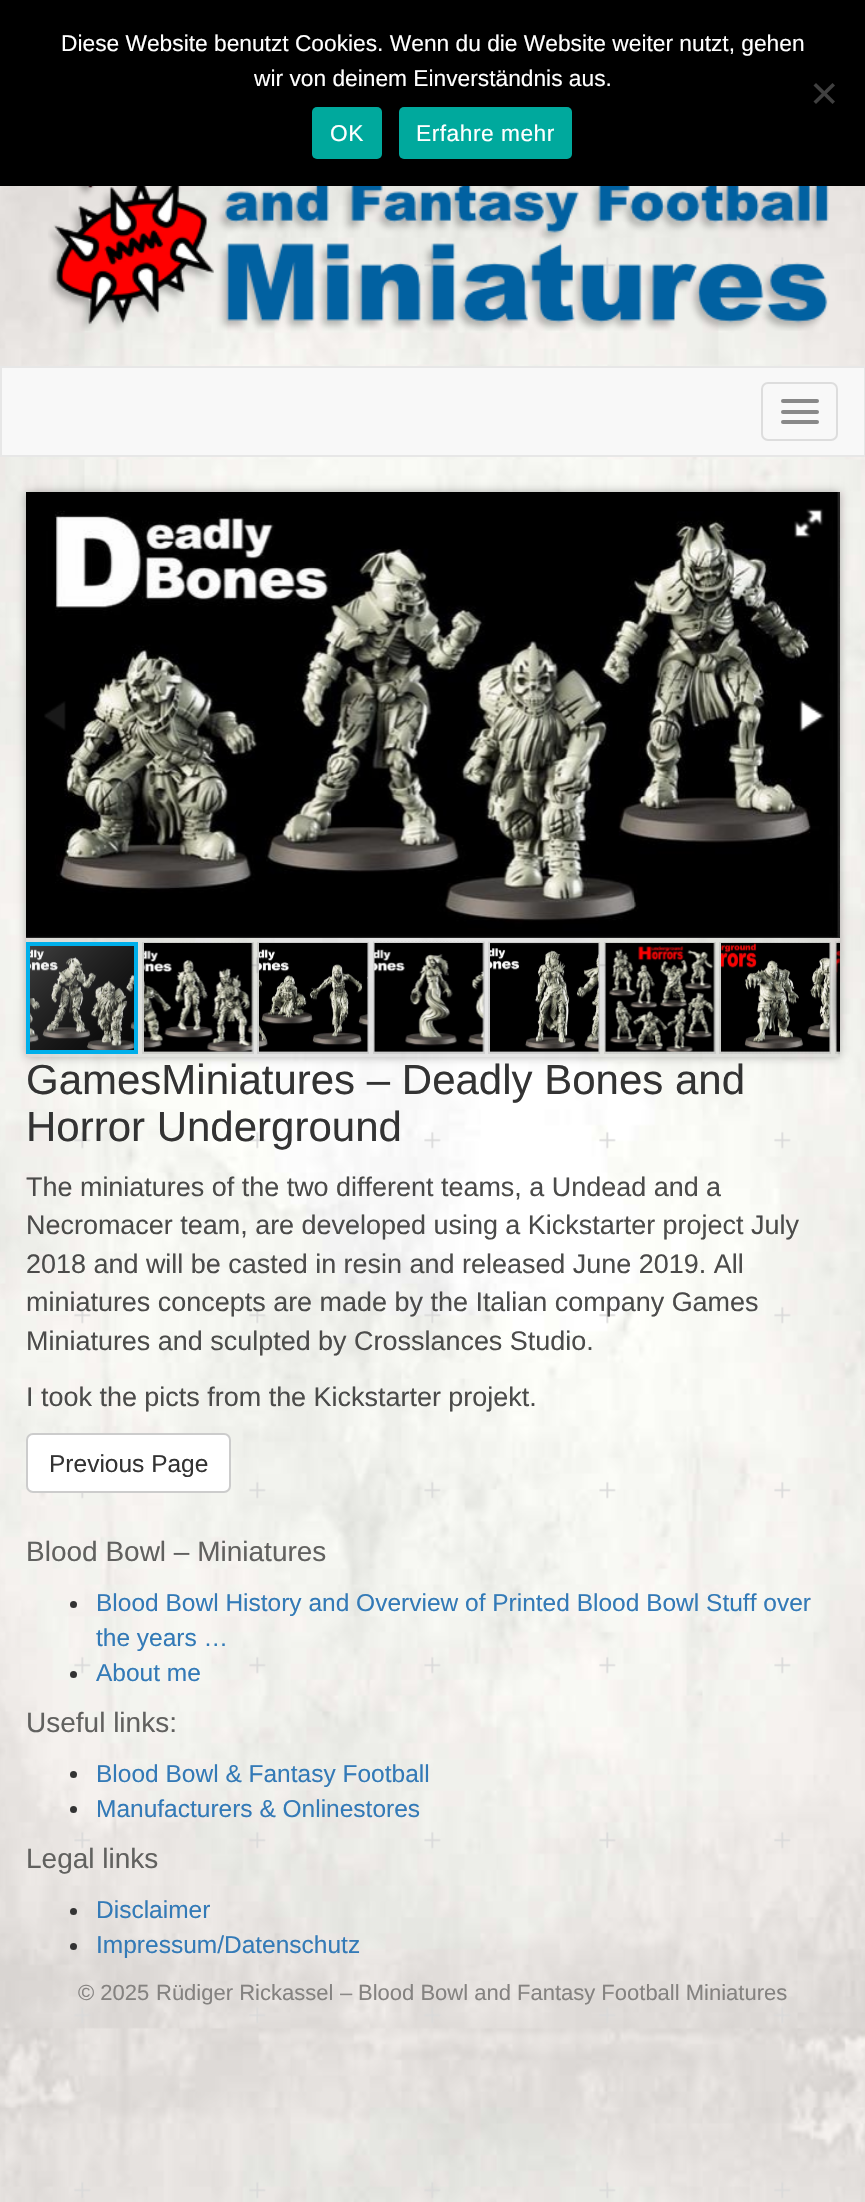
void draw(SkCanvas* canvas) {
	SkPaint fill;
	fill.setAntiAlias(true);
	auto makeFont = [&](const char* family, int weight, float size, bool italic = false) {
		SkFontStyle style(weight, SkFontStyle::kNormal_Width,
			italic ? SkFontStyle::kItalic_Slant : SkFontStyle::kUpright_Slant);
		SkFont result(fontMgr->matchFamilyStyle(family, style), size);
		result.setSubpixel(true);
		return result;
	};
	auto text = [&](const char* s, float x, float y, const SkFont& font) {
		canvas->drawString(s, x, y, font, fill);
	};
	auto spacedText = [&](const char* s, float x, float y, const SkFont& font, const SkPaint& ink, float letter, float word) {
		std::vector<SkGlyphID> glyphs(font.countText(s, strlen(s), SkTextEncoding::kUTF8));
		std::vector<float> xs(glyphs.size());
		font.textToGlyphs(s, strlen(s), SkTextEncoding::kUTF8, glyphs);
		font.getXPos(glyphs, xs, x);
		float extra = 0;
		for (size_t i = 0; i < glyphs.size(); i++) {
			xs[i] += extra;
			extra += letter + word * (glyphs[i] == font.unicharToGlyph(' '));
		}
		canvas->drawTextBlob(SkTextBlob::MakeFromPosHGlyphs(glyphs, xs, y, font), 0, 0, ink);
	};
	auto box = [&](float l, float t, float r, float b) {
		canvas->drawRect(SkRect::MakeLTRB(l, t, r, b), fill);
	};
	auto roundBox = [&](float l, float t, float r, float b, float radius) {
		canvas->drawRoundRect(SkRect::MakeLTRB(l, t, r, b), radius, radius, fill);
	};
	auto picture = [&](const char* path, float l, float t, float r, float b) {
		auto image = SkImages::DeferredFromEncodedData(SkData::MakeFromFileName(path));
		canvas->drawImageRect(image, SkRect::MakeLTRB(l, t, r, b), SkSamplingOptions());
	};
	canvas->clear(0xFFFFFFFF);
	picture("image0.png", 0, 186, 865, 2202);
	fill.setColor(0xFF000000);
	box(0, 0, 865, 186);
	fill.setColor(0xFF404040);
	canvas->drawPath(SkPathBuilder().moveTo(832.5f, 83).lineTo(835, 85.5f).lineTo(816, 104).lineTo(813.5f, 101.5f).close().detach(), fill);
	canvas->drawPath(SkPathBuilder().moveTo(813.5f, 85.5f).lineTo(816, 83).lineTo(835, 101.5f).lineTo(832.5f, 104).close().detach(), fill);
	fill.setColor(0xFF00A99D);
	roundBox(312, 107, 382, 159, 5);
	roundBox(399, 107, 572, 159, 5);
	picture("image1.png", 48, 186, 829, 331);
	fill.setColor(0xFFF8F8F8);
	canvas->drawRect(SkRect::MakeLTRB(1, 367, 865, 456), fill);
	fill.setStyle(SkPaint::kStroke_Style);
	fill.setStrokeWidth(2);
	fill.setColor(0xFFE7E7E7);
	canvas->drawRect(SkRect::MakeLTRB(1, 367, 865, 456), fill);
	fill.setColor(0xFFDDDDDD);
	canvas->drawRoundRect(SkRect::MakeLTRB(762, 383, 837, 440), 6, 6, fill);
	fill.setStyle(SkPaint::kFill_Style);
	fill.setColor(0xFF888888);
	roundBox(781, 399, 819, 403, 2);
	roundBox(781, 410, 819, 414, 2);
	roundBox(781, 420, 819, 424, 2);
	canvas->save();
	canvas->clipPath(SkPathBuilder(SkPathFillType::kEvenOdd).moveTo(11, 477).lineTo(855, 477).lineTo(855, 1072).lineTo(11, 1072).close().moveTo(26, 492).lineTo(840, 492).lineTo(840, 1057).lineTo(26, 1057).close().detach(), true);
	fill.setColor(0x4D000000);
	fill.setMaskFilter(SkMaskFilter::MakeBlur(kNormal_SkBlurStyle, 4.5f));
	canvas->drawRect(SkRect::MakeLTRB(26, 492, 840, 1057), fill);
	fill.setMaskFilter(nullptr);
	canvas->restore();
	picture("image2.png", 26, 492, 840, 938);
	picture("image3.png", 794, 508, 824, 538);
	picture("image4.png", 44, 701, 66, 731);
	picture("image5.png", 799, 699, 825, 732);
	fill.setColor(0x1A000000);
	box(26, 938, 840, 1057);
	fill.setColor(0x337F7F7F);
	box(719, 942, 831, 1054);
	fill.setStyle(SkPaint::kStroke_Style);
	fill.setStrokeWidth(1.8f);
	fill.setColor(0x1AE5E5E5);
	fill.setPathEffect(SkDashPathEffect::Make({{1.75f, 1.75f}}, 0));
	canvas->drawPath(SkPathBuilder().moveTo(719, 942.5f).lineTo(831, 942.5f).detach(), fill);
	fill.setPathEffect(nullptr);
	fill.setPathEffect(SkDashPathEffect::Make({{1.75f, 1.75f}}, 0));
	canvas->drawPath(SkPathBuilder().moveTo(830.5f, 941.5f).lineTo(830.5f, 1053.5f).detach(), fill);
	fill.setPathEffect(nullptr);
	fill.setStyle(SkPaint::kFill_Style);
	fill.setColor(0x337F7F7F);
	box(835, 942, 840, 1054);
	canvas->save();
	canvas->clipRect(SkRect::MakeLTRB(26, 938, 840, 1057));
	fill.setStyle(SkPaint::kStroke_Style);
	fill.setColor(0xFFCAC8C6);
	fill.setPathEffect(SkDashPathEffect::Make({{1.75f, 1.75f}}, 0));
	canvas->drawPath(SkPathBuilder().moveTo(835, 942.5f).lineTo(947, 942.5f).detach(), fill);
	fill.setPathEffect(nullptr);
	fill.setColor(0xFFCCCDCA);
	fill.setPathEffect(SkDashPathEffect::Make({{1.75f, 1.75f}}, 0));
	canvas->drawPath(SkPathBuilder().moveTo(835, 1052.5f).lineTo(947, 1052.5f).detach(), fill);
	fill.setPathEffect(nullptr);
	canvas->restore();
	fill.setColor(0x1AE5E5E5);
	fill.setPathEffect(SkDashPathEffect::Make({{1.75f, 1.75f}}, 0));
	canvas->drawPath(SkPathBuilder().moveTo(835.5f, 941.5f).lineTo(835.5f, 1053.5f).detach(), fill);
	fill.setPathEffect(nullptr);
	picture("image12.png", 836, 943, 840, 1052);
	fill.setStyle(SkPaint::kFill_Style);
	{
		const SkColor colors[] = {0x66000000, 0x00000000};
		const float stops[] = {0, 1};
		SkMatrix m = SkMatrix::Translate(840, 998).preScale(9, 60);
		fill.setShader(SkGradientShader::MakeRadial({0, 0}, 1, colors, stops, 2, SkTileMode::kClamp, 0, &m));
		fill.setAlpha(255);
	}
	box(831, 941, 840, 1055);
	{
		const SkColor colors[] = {0x00000000, 0x33000000, 0x4D000000, 0x00000000};
		const float stops[] = {0, 0.25f, 0.75f, 1};
		const SkPoint ends[] = {{839, 938}, {839, 1057}};
		fill.setShader(SkGradientShader::MakeLinear(ends, colors, stops, 4, SkTileMode::kClamp));
		fill.setAlpha(255);
	}
	box(838, 938, 840, 1057);
	picture("image13.png", 30, 946, 134, 1050);
	fill.setStyle(SkPaint::kStroke_Style);
	fill.setStrokeWidth(4);
	fill.setShader(nullptr);
	fill.setColor(0xFF00AFEA);
	canvas->drawRect(SkRect::MakeLTRB(28, 944, 136, 1052), fill);
	fill.setStyle(SkPaint::kFill_Style);
	fill.setColor(0x337F7F7F);
	box(142, 942, 254, 1054);
	fill.setStyle(SkPaint::kStroke_Style);
	fill.setStrokeWidth(1.8f);
	fill.setColor(0x1AE5E5E5);
	fill.setPathEffect(SkDashPathEffect::Make({{1.75f, 1.75f}}, 0));
	canvas->drawPath(SkPathBuilder().moveTo(142, 942.5f).lineTo(254, 942.5f).detach(), fill);
	fill.setPathEffect(nullptr);
	fill.setPathEffect(SkDashPathEffect::Make({{1.75f, 1.75f}}, 0));
	canvas->drawPath(SkPathBuilder().moveTo(253, 941.5f).lineTo(253, 1053.5f).detach(), fill);
	fill.setPathEffect(nullptr);
	fill.setPathEffect(SkDashPathEffect::Make({{1.75f, 1.75f}}, 0));
	canvas->drawPath(SkPathBuilder().moveTo(142.5f, 941.5f).lineTo(142.5f, 1053.5f).detach(), fill);
	fill.setPathEffect(nullptr);
	picture("image6.png", 144, 943, 253, 1052);
	fill.setStyle(SkPaint::kFill_Style);
	fill.setColor(0x337F7F7F);
	box(257, 942, 369, 1054);
	fill.setStyle(SkPaint::kStroke_Style);
	fill.setColor(0x1AE5E5E5);
	fill.setPathEffect(SkDashPathEffect::Make({{1.75f, 1.75f}}, 0));
	canvas->drawPath(SkPathBuilder().moveTo(258, 941.5f).lineTo(258, 1053.5f).detach(), fill);
	fill.setPathEffect(nullptr);
	picture("image7.png", 259, 943, 368, 1052);
	fill.setStyle(SkPaint::kFill_Style);
	fill.setColor(0x337F7F7F);
	box(373, 942, 485, 1054);
	fill.setStyle(SkPaint::kStroke_Style);
	fill.setColor(0xFFD3D3D3);
	fill.setPathEffect(SkDashPathEffect::Make({{1.75f, 1.75f}}, 0));
	canvas->drawPath(SkPathBuilder().moveTo(373, 942.5f).lineTo(485, 942.5f).detach(), fill);
	fill.setPathEffect(nullptr);
	fill.setPathEffect(SkDashPathEffect::Make({{1.75f, 1.75f}}, 0));
	canvas->drawPath(SkPathBuilder().moveTo(484, 941.5f).lineTo(484, 1053.5f).detach(), fill);
	fill.setPathEffect(nullptr);
	picture("image8.png", 374, 943, 484, 1052);
	fill.setStyle(SkPaint::kFill_Style);
	fill.setColor(0x337F7F7F);
	box(488, 942, 600, 1054);
	fill.setStyle(SkPaint::kStroke_Style);
	fill.setColor(0x1AE5E5E5);
	fill.setPathEffect(SkDashPathEffect::Make({{1.75f, 1.75f}}, 0));
	canvas->drawPath(SkPathBuilder().moveTo(599.5f, 941.5f).lineTo(599.5f, 1053.5f).detach(), fill);
	fill.setPathEffect(nullptr);
	fill.setColor(0xFFD3D3D3);
	fill.setPathEffect(SkDashPathEffect::Make({{1.75f, 1.75f}}, 0));
	canvas->drawPath(SkPathBuilder().moveTo(489, 941.5f).lineTo(489, 1053.5f).detach(), fill);
	fill.setPathEffect(nullptr);
	picture("image9.png", 490, 943, 599, 1052);
	fill.setStyle(SkPaint::kFill_Style);
	fill.setColor(0x337F7F7F);
	box(604, 942, 716, 1054);
	fill.setStyle(SkPaint::kStroke_Style);
	fill.setColor(0x1AE5E5E5);
	fill.setPathEffect(SkDashPathEffect::Make({{1.75f, 1.75f}}, 0));
	canvas->drawPath(SkPathBuilder().moveTo(604, 942.5f).lineTo(716, 942.5f).detach(), fill);
	fill.setPathEffect(nullptr);
	fill.setPathEffect(SkDashPathEffect::Make({{1.75f, 1.75f}}, 0));
	canvas->drawPath(SkPathBuilder().moveTo(604, 1052.5f).lineTo(716, 1052.5f).detach(), fill);
	fill.setPathEffect(nullptr);
	fill.setPathEffect(SkDashPathEffect::Make({{1.75f, 1.75f}}, 0));
	canvas->drawPath(SkPathBuilder().moveTo(604.5f, 941.5f).lineTo(604.5f, 1053.5f).detach(), fill);
	fill.setPathEffect(nullptr);
	picture("image10.png", 605, 943, 715, 1052);
	fill.setPathEffect(SkDashPathEffect::Make({{1.75f, 1.75f}}, 0));
	canvas->drawPath(SkPathBuilder().moveTo(719, 1052.5f).lineTo(831, 1052.5f).detach(), fill);
	fill.setPathEffect(nullptr);
	picture("image11.png", 721, 943, 830, 1052);
	fill.setStyle(SkPaint::kFill_Style);
	fill.setColor(0xFFFFFFFF);
	canvas->drawRoundRect(SkRect::MakeLTRB(27, 1434, 230, 1492), 6, 6, fill);
	fill.setStyle(SkPaint::kStroke_Style);
	fill.setStrokeWidth(2);
	fill.setColor(0xFFCCCCCC);
	canvas->drawRoundRect(SkRect::MakeLTRB(27, 1434, 230, 1492), 6, 6, fill);
	fill.setStyle(SkPaint::kFill_Style);
	fill.setColor(0xFF333333);
	canvas->drawCircle(73.5f, 1604.5f, 3.5f, fill);
	canvas->drawCircle(73.5f, 1674.5f, 3.5f, fill);
	canvas->drawCircle(73.5f, 1774.5f, 3.5f, fill);
	canvas->drawCircle(73.5f, 1809.5f, 3.5f, fill);
	canvas->drawCircle(73.5f, 1911.5f, 3.5f, fill);
	canvas->drawCircle(73.5f, 1946.5f, 3.5f, fill);
	auto font1 = makeFont("Liberation Sans", 400, 22.75f);
	fill.setColor(0xFFFFFFFF);
	text("Diese Website benutzt Cookies. Wenn du die Website weiter nutzt, gehen", 61, 51, font1);
	text("wir von deinem Einverständnis aus.", 254, 86, font1);
	spacedText("OK", 330, 141, font1, fill, 0.5f, 0);
	spacedText("Erfahre mehr", 416, 141, font1, fill, 0.5f, 0);
	auto font2 = makeFont("Liberation Sans", 400, 42);
	fill.setColor(0xFF333333);
	text("GamesMiniatures – Deadly Bones and", 26, 1094, font2);
	text("Horror Underground", 26, 1141, font2);
	auto font3 = makeFont("Liberation Sans", 400, 26.95f);
	fill.setColor(0xFF4B4B4A);
	text("The miniatures of the two different teams, a Undead and a", 26, 1196, font3);
	text("Necromacer team, are developed using a Kickstarter project July", 26, 1234, font3);
	text("2018 and will be casted in resin and released June 2019. All", 26, 1273, font3);
	text("miniatures concepts are made by the Italian company Games", 26, 1311, font3);
	text("Miniatures and sculpted by Crosslances Studio.", 26, 1350, font3);
	text("I took the picts from the Kickstarter projekt.", 26, 1406, font3);
	auto font4 = makeFont("Liberation Sans", 400, 24.5f);
	fill.setColor(0xFF333333);
	text("Previous Page", 49, 1472, font4);
	auto font5 = makeFont("Liberation Sans", 400, 28);
	fill.setColor(0xFF61615F);
	text("Blood Bowl – Miniatures", 26, 1561, font5);
	fill.setColor(0xFF337AB7);
	text("Blood Bowl History and Overview of Printed Blood Bowl Stuff over", 96, 1611, font4);
	text("the years …", 96, 1646, font4);
	text("About me", 96, 1681, font4);
	fill.setColor(0xFF61615F);
	text("Useful links:", 26, 1732, font5);
	fill.setColor(0xFF337AB7);
	text("Blood Bowl & Fantasy Football", 96, 1782, font4);
	text("Manufacturers & Onlinestores", 96, 1817, font4);
	fill.setColor(0xFF61615F);
	text("Legal links", 26, 1868, font5);
	fill.setColor(0xFF337AB7);
	text("Disclaimer", 96, 1918, font4);
	text("Impressum/Datenschutz", 96, 1953, font4);
	auto font6 = makeFont("Liberation Sans", 400, 22);
	fill.setColor(0xFF848280);
	text("© 2025", 78, 2000, font6);
	text("Rüdiger Rickassel", 156, 2000, font6);
	fill.setColor(0xFF8A8886);
	text("–", 340, 2000, font6);
	fill.setColor(0xFF848280);
	text("Blood Bowl and Fantasy Football Miniatures", 358, 2000, font6);
}
